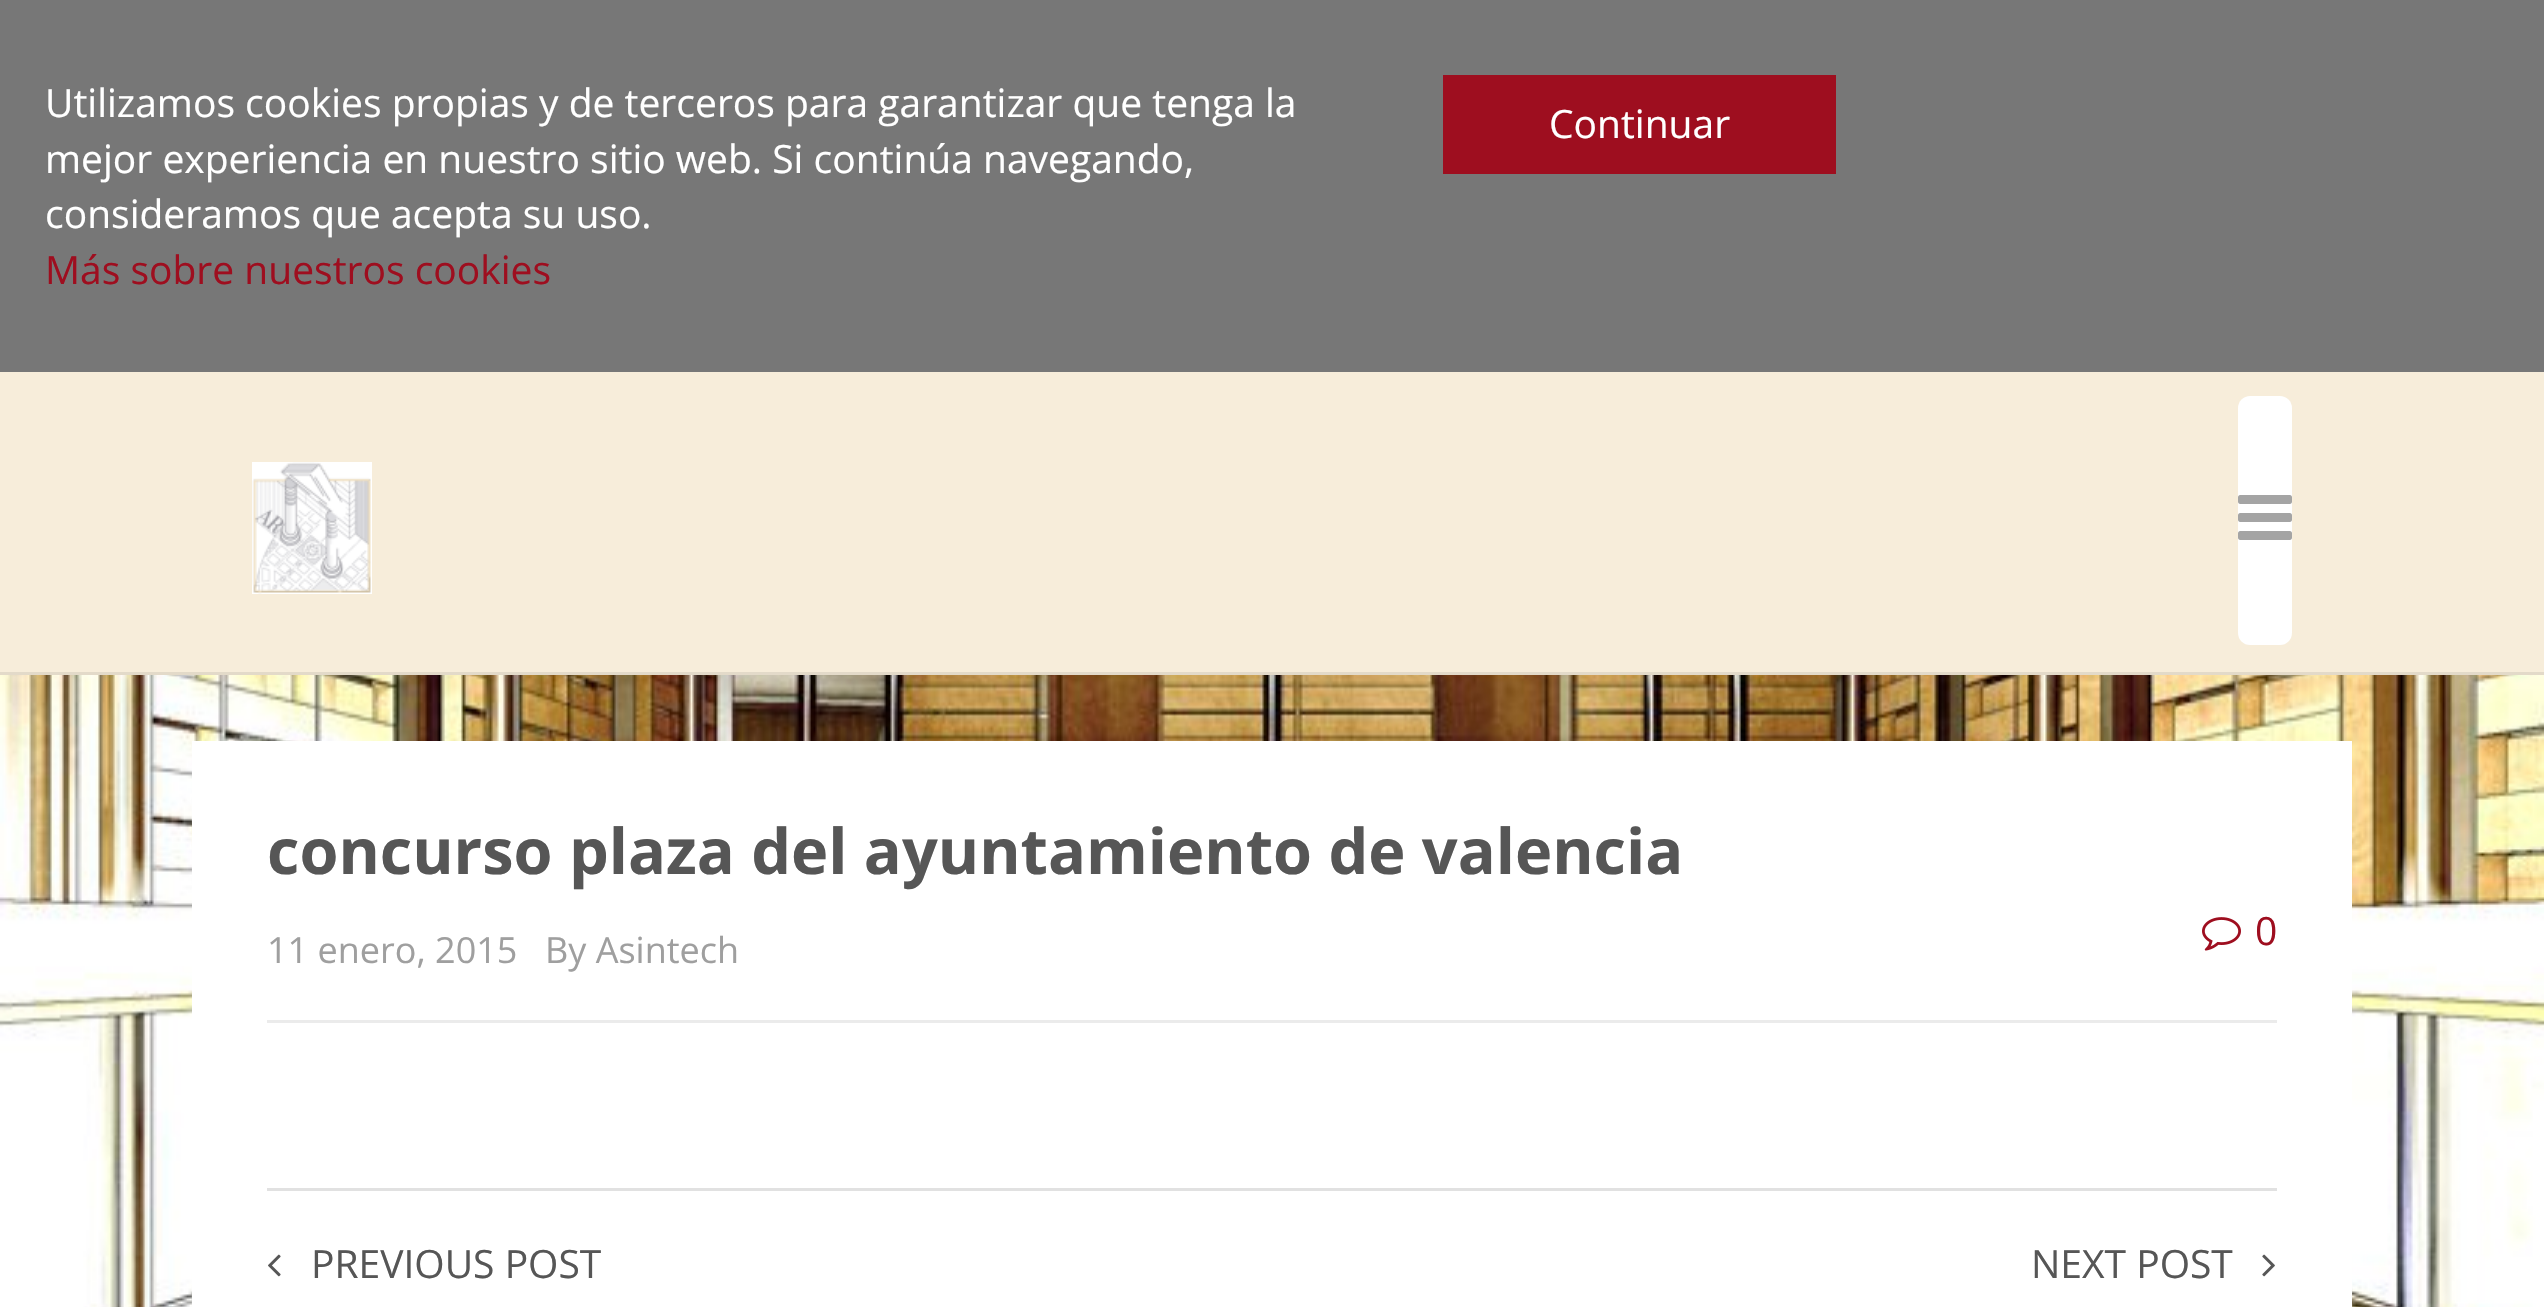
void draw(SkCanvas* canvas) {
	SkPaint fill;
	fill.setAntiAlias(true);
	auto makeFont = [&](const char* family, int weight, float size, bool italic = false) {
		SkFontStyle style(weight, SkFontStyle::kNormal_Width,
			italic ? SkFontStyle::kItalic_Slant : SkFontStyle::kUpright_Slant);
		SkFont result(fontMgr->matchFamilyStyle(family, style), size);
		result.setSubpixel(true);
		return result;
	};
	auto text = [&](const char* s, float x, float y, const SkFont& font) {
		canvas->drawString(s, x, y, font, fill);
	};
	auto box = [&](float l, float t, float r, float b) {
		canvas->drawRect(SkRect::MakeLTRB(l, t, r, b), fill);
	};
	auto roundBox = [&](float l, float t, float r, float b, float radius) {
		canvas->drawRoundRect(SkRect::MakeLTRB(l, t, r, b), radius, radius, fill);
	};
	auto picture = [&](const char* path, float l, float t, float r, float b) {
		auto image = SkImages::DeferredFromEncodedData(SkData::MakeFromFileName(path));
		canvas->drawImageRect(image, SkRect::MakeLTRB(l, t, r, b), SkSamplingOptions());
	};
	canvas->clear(0xFF777777);
	fill.setColor(0xFF9E0E1F);
	box(1443, 75, 1836, 174);
	fill.setColor(0xFFF7EDDA);
	box(0, 372, 2544, 672);
	fill.setColor(0xFFE3DAC9);
	box(0, 672, 2544, 675);
	fill.setColor(0xFFFFFFFF);
	box(252, 462, 372, 594);
	picture("image0.png", 252, 462, 371, 594);
	roundBox(2238, 396, 2292, 645, 12);
	picture("image1.png", 2238, 495, 2292, 540);
	picture("image2.png", 0, 675, 2544, 1307);
	box(192, 741, 2352, 1307);
	picture("image3.png", 2202, 917, 2241, 951);
	fill.setColor(0xFFEBEBEB);
	box(267, 1020, 2277, 1023);
	fill.setColor(0xFFE1E1E1);
	box(267, 1188, 2277, 1191);
	picture("image4.png", 268, 1254, 281, 1277);
	picture("image5.png", 2262, 1254, 2275, 1277);
	auto font1 = makeFont("Open Sans", 400, 39);
	fill.setColor(0xFFFFFFFF);
	text("Utilizamos cookies propias y de terceros para garantizar que tenga la", 45, 117, font1);
	text("mejor experiencia en nuestro sitio web. Si continúa navegando,", 45, 173, font1);
	text("consideramos que acepta su uso.", 45, 228, font1);
	fill.setColor(0xFF9E0E1F);
	text("Más sobre nuestros cookies", 45, 284, font1);
	fill.setColor(0xFFFFFFFF);
	text("Continuar", 1549, 138, font1);
	auto font2 = makeFont("Open Sans", 700, 63);
	fill.setColor(0xFF565656);
	text("concurso plaza del ayuntamiento de valencia", 267, 874, font2);
	fill.setColor(0xFF9E0E1F);
	text("0", 2255, 945, font1);
	auto font3 = makeFont("Open Sans", 400, 36);
	fill.setColor(0xFF9F9F9F);
	text("11 enero, 2015", 267, 963, font3);
	text("By Asintech", 545, 963, font3);
	fill.setColor(0xFF565656);
	text("PREVIOUS POST", 311, 1278, font1);
	text("NEXT POST", 2031, 1278, font1);
}
